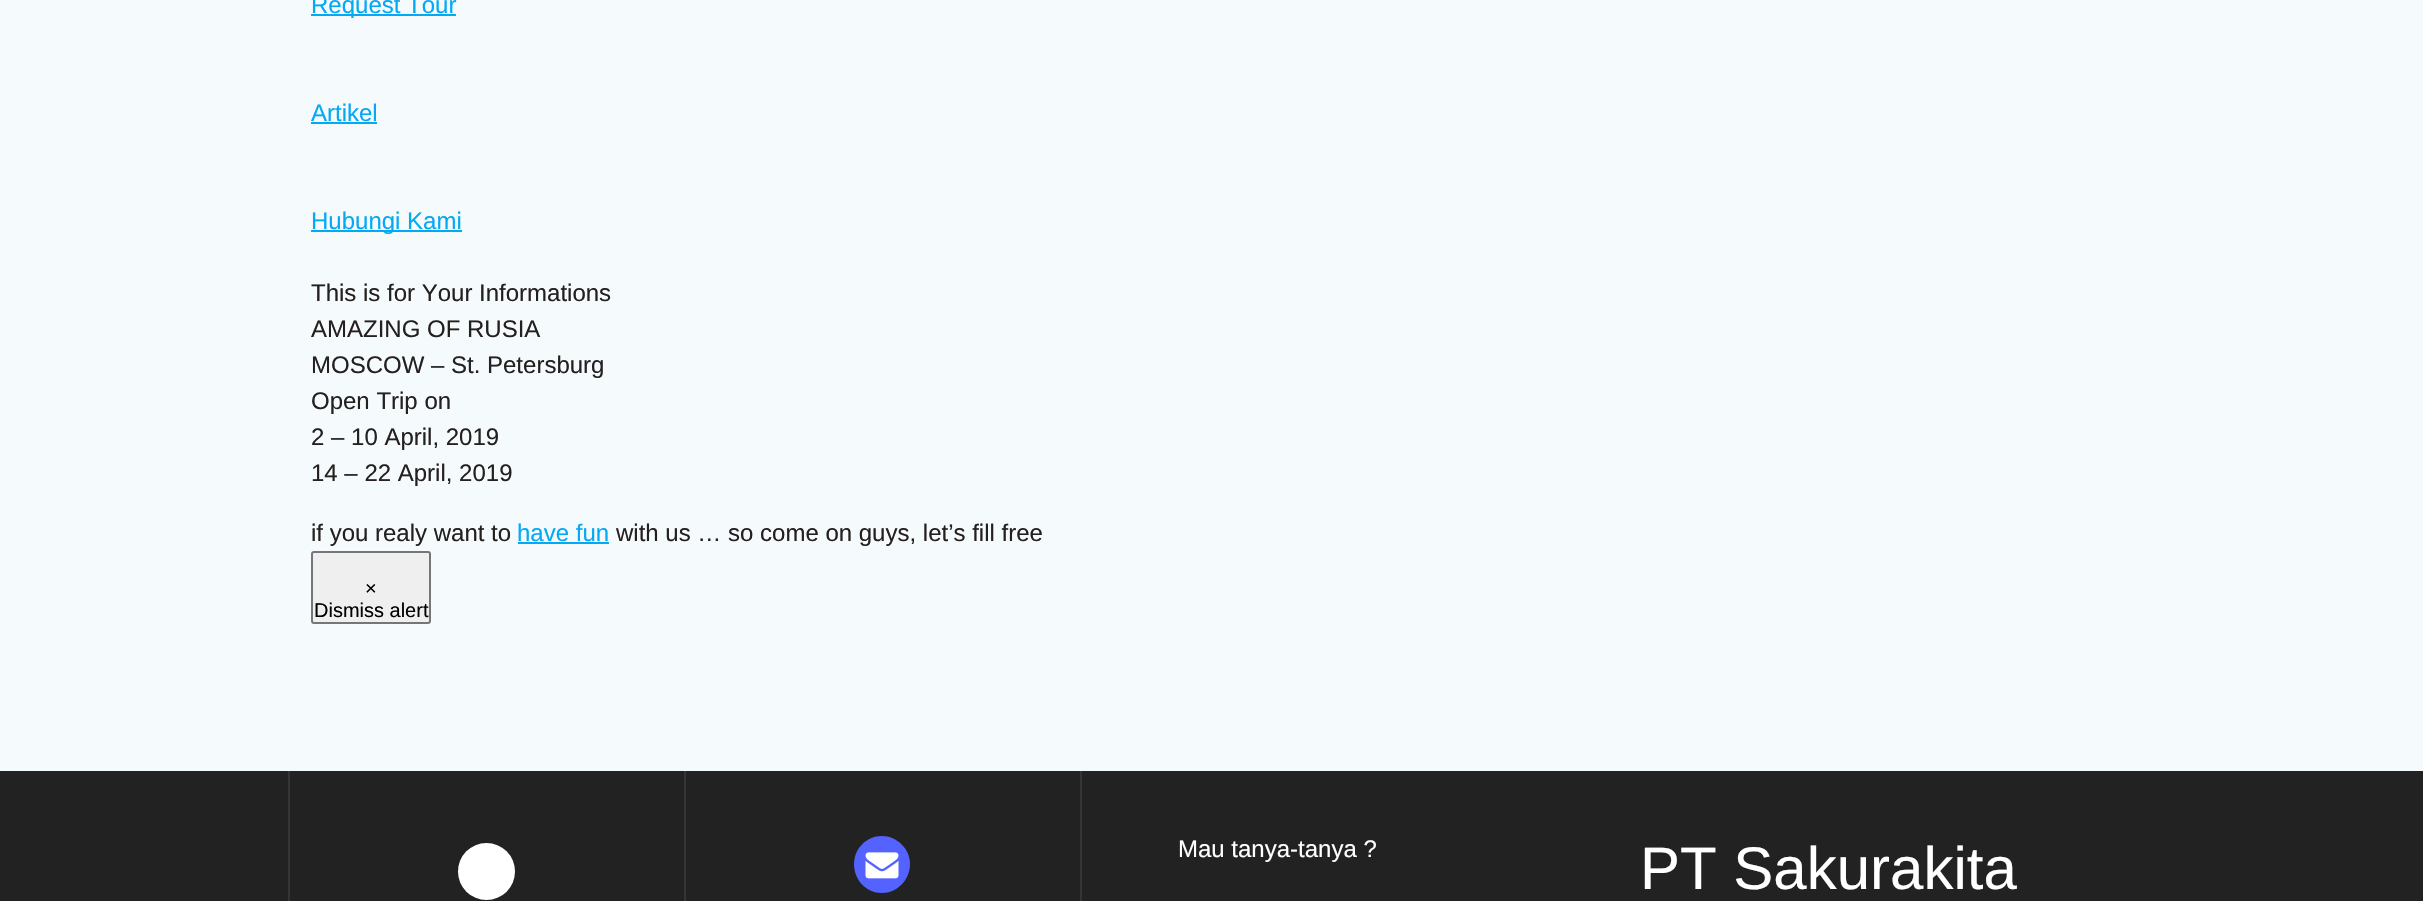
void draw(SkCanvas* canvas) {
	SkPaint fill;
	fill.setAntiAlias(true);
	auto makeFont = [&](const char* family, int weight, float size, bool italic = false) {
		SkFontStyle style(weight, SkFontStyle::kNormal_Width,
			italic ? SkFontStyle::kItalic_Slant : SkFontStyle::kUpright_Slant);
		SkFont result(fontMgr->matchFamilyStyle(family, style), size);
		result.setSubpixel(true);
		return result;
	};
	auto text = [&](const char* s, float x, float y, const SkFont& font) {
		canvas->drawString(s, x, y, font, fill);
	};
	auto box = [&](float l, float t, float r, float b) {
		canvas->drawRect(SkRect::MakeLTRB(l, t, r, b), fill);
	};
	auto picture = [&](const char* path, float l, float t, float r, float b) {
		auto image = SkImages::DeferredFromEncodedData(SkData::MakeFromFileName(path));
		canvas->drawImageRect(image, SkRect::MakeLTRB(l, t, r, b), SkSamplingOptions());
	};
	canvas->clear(0xFF222222);
	fill.setColor(0xFFF5FAFD);
	box(0, 0, 2423, 771);
	fill.setColor(0xFF03A9F4);
	box(311, 14, 456, 16);
	box(311, 122, 377, 124);
	box(311, 230, 462, 232);
	box(518, 542, 609, 544);
	fill.setColor(0xFFEFEFEF);
	canvas->drawRoundRect(SkRect::MakeLTRB(312, 552, 430, 623), 2, 2, fill);
	fill.setStyle(SkPaint::kStroke_Style);
	fill.setStrokeWidth(2);
	fill.setColor(0xFF767676);
	canvas->drawRoundRect(SkRect::MakeLTRB(312, 552, 430, 623), 2, 2, fill);
	fill.setStyle(SkPaint::kFill_Style);
	fill.setColor(0xFF353535);
	box(288, 771, 290, 901);
	fill.setColor(0xFFFFFFFF);
	canvas->drawCircle(486.5f, 871.5f, 28.5f, fill);
	fill.setColor(0xFF353535);
	box(684, 771, 686, 901);
	fill.setColor(0xFF5463FF);
	canvas->drawPath(SkPathBuilder().moveTo(910, 864).cubicTo(910, 849, 897, 836, 882, 836).cubicTo(866, 836, 854, 849, 854, 864).cubicTo(854, 880, 866, 893, 882, 893).cubicTo(897, 893, 910, 880, 910, 864).close().detach(), fill);
	picture("image0.png", 865, 852, 899, 879);
	fill.setColor(0xFF353535);
	box(1080, 771, 1082, 901);
	auto font1 = makeFont("Liberation Sans", 400, 24);
	fill.setColor(0xFF03A9F4);
	text("Request Tour", 311, 13, font1);
	text("Artikel", 311, 121, font1);
	text("Hubungi Kami", 311, 229, font1);
	fill.setColor(0xFF252020);
	text("This is for Your Informations", 311, 301, font1);
	text("AMAZING OF RUSIA", 311, 337, font1);
	text("MOSCOW – St. Petersburg", 311, 373, font1);
	text("Open Trip on", 311, 409, font1);
	text("2 – 10 April, 2019", 311, 445, font1);
	text("14 – 22 April, 2019", 311, 481, font1);
	text("if you realy want to", 311, 541, font1);
	fill.setColor(0xFF03A9F4);
	text("have fun", 517, 541, font1);
	fill.setColor(0xFF252020);
	text("with us … so come on guys, let’s fill free", 616, 541, font1);
	auto font2 = makeFont("Liberation Sans", 400, 20);
	fill.setColor(0xFF000000);
	text("×", 365, 595, font2);
	text("Dismiss alert", 314, 617, font2);
	fill.setColor(0xFFFFFFFF);
	text("Mau tanya-tanya ?", 1178, 857, font1);
	auto font3 = makeFont("Liberation Sans", 400, 60);
	text("PT Sakurakita", 1640, 889, font3);
}
